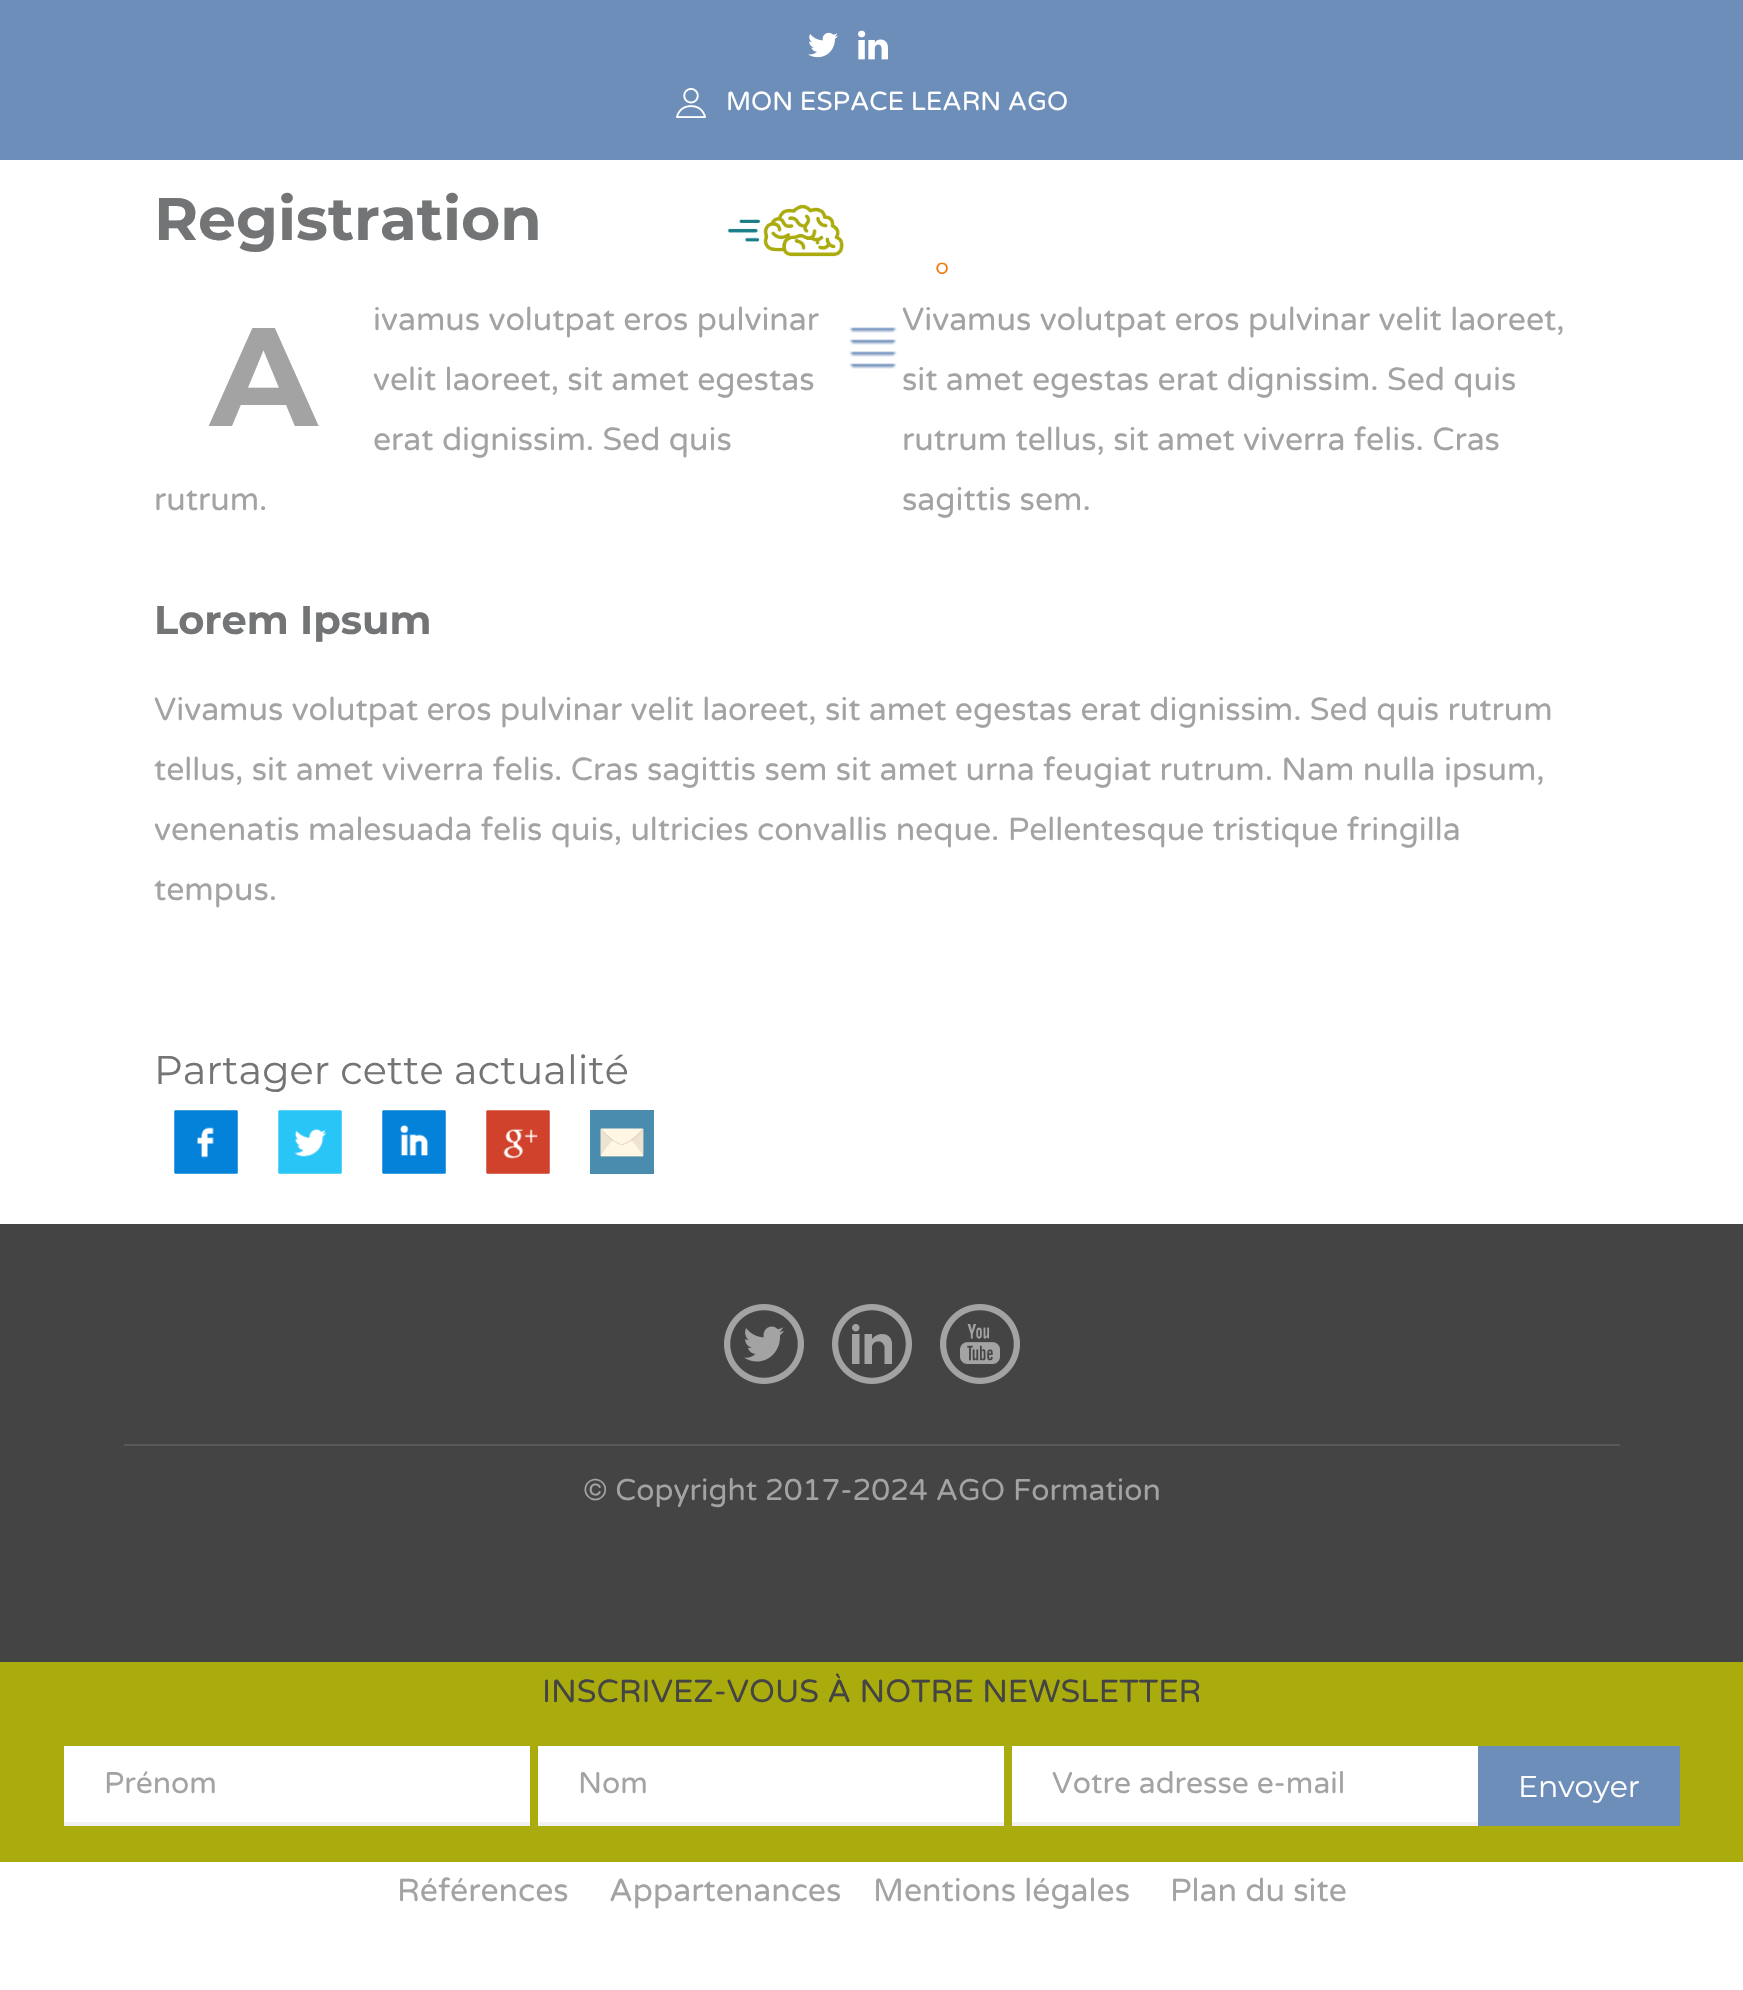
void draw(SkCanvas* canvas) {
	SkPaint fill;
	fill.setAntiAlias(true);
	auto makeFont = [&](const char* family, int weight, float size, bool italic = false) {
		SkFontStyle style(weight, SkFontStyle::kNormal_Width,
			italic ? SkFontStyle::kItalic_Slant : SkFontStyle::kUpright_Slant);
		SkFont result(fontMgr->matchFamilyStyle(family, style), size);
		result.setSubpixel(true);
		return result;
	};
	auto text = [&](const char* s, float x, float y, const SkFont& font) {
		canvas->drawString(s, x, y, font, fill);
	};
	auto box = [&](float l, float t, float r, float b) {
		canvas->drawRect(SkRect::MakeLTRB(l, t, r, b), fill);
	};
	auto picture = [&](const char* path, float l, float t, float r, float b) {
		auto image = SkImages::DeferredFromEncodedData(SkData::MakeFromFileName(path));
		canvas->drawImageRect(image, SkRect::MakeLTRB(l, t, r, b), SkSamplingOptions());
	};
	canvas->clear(0xFFFFFFFF);
	fill.setColor(0xFF6E8EBA);
	box(0, 0, 1743, 160);
	picture("image0.png", 808, 32, 838, 58);
	picture("image1.png", 858, 30, 888, 60);
	picture("image2.png", 676, 88, 706, 118);
	picture("image3.png", 727, 204, 949, 275);
	picture("image4.png", 849, 327, 897, 369);
	picture("image5.png", 174, 1110, 238, 1174);
	picture("image6.png", 278, 1110, 342, 1174);
	picture("image7.png", 382, 1110, 446, 1174);
	picture("image8.png", 486, 1110, 550, 1174);
	picture("image9.png", 590, 1110, 654, 1174);
	fill.setColor(0xFF444444);
	box(0, 1224, 1743, 1662);
	picture("image10.png", 724, 1304, 804, 1384);
	picture("image11.png", 832, 1304, 912, 1384);
	picture("image12.png", 940, 1304, 1020, 1384);
	fill.setColor(0xFF595959);
	box(124, 1444, 1620, 1446);
	fill.setColor(0xFFAAAB0D);
	box(0, 1662, 1743, 1862);
	fill.setColor(0xFFFFFFFF);
	box(64, 1746, 530, 1822);
	fill.setColor(0xFFF1F1F1);
	box(64, 1822, 530, 1826);
	fill.setColor(0xFFFFFFFF);
	box(538, 1746, 1004, 1822);
	fill.setColor(0xFFF1F1F1);
	box(538, 1822, 1004, 1826);
	fill.setColor(0xFFFFFFFF);
	box(1012, 1746, 1478, 1822);
	fill.setColor(0xFFF1F1F1);
	box(1012, 1822, 1478, 1826);
	fill.setColor(0xFF6E8EBA);
	box(1478, 1746, 1680, 1826);
	auto font1 = makeFont("Varela Round", 400, 26);
	fill.setColor(0xFFFFFFFF);
	text("MON ESPACE LEARN AGO", 726, 110, font1);
	auto font2 = makeFont("Montserrat", 700, 60);
	fill.setColor(0xFF727475);
	text("Registration", 154, 240, font2);
	auto font3 = makeFont("Varela Round", 400, 32);
	fill.setColor(0xFFA3A3A3);
	text("ivamus volutpat eros pulvinar", 373, 330, font3);
	auto font4 = makeFont("Montserrat", 700, 140);
	text("A", 210, 426, font4);
	text("velit laoreet, sit amet egestas", 373, 390, font3);
	text("erat dignissim. Sed quis", 373, 450, font3);
	text("rutrum.", 154, 510, font3);
	text("Vivamus volutpat eros pulvinar velit laoreet,", 902, 330, font3);
	text("sit amet egestas erat dignissim. Sed quis", 902, 390, font3);
	text("rutrum tellus, sit amet viverra felis. Cras", 902, 450, font3);
	text("sagittis sem.", 902, 510, font3);
	auto font5 = makeFont("Montserrat", 700, 40);
	fill.setColor(0xFF727475);
	text("Lorem Ipsum", 154, 634, font5);
	fill.setColor(0xFFA3A3A3);
	text("Vivamus volutpat eros pulvinar velit laoreet, sit amet egestas erat dignissim. Sed quis rutrum", 154, 720, font3);
	text("tellus, sit amet viverra felis. Cras sagittis sem sit amet urna feugiat rutrum. Nam nulla ipsum,", 154, 780, font3);
	text("venenatis malesuada felis quis, ultricies convallis neque. Pellentesque tristique fringilla", 154, 840, font3);
	text("tempus.", 154, 900, font3);
	auto font6 = makeFont("Montserrat", 400, 40);
	fill.setColor(0xFF727475);
	text("Partager cette actualité", 154, 1084, font6);
	auto font7 = makeFont("Varela Round", 400, 30);
	fill.setColor(0xFFA3A3A3);
	text("© Copyright 2017-2024 AGO Formation", 583, 1500, font7);
	fill.setColor(0xFF444444);
	text("INSCRIVEZ-VOUS À NOTRE NEWSLETTER", 542, 1702, font3);
	fill.setColor(0xFFA3A3A3);
	text("Prénom", 104, 1793, font7);
	text("Nom", 578, 1793, font7);
	text("Votre adresse e-mail", 1052, 1793, font7);
	auto font8 = makeFont("Montserrat", 400, 30);
	fill.setColor(0xFFFFFFFF);
	text("Envoyer", 1518, 1797, font8);
	fill.setColor(0xFFA3A3A3);
	text("Références", 397, 1901, font3);
	text("Appartenances", 609, 1901, font3);
	text("Mentions légales", 873, 1901, font3);
	text("Plan du site", 1170, 1901, font3);
}
